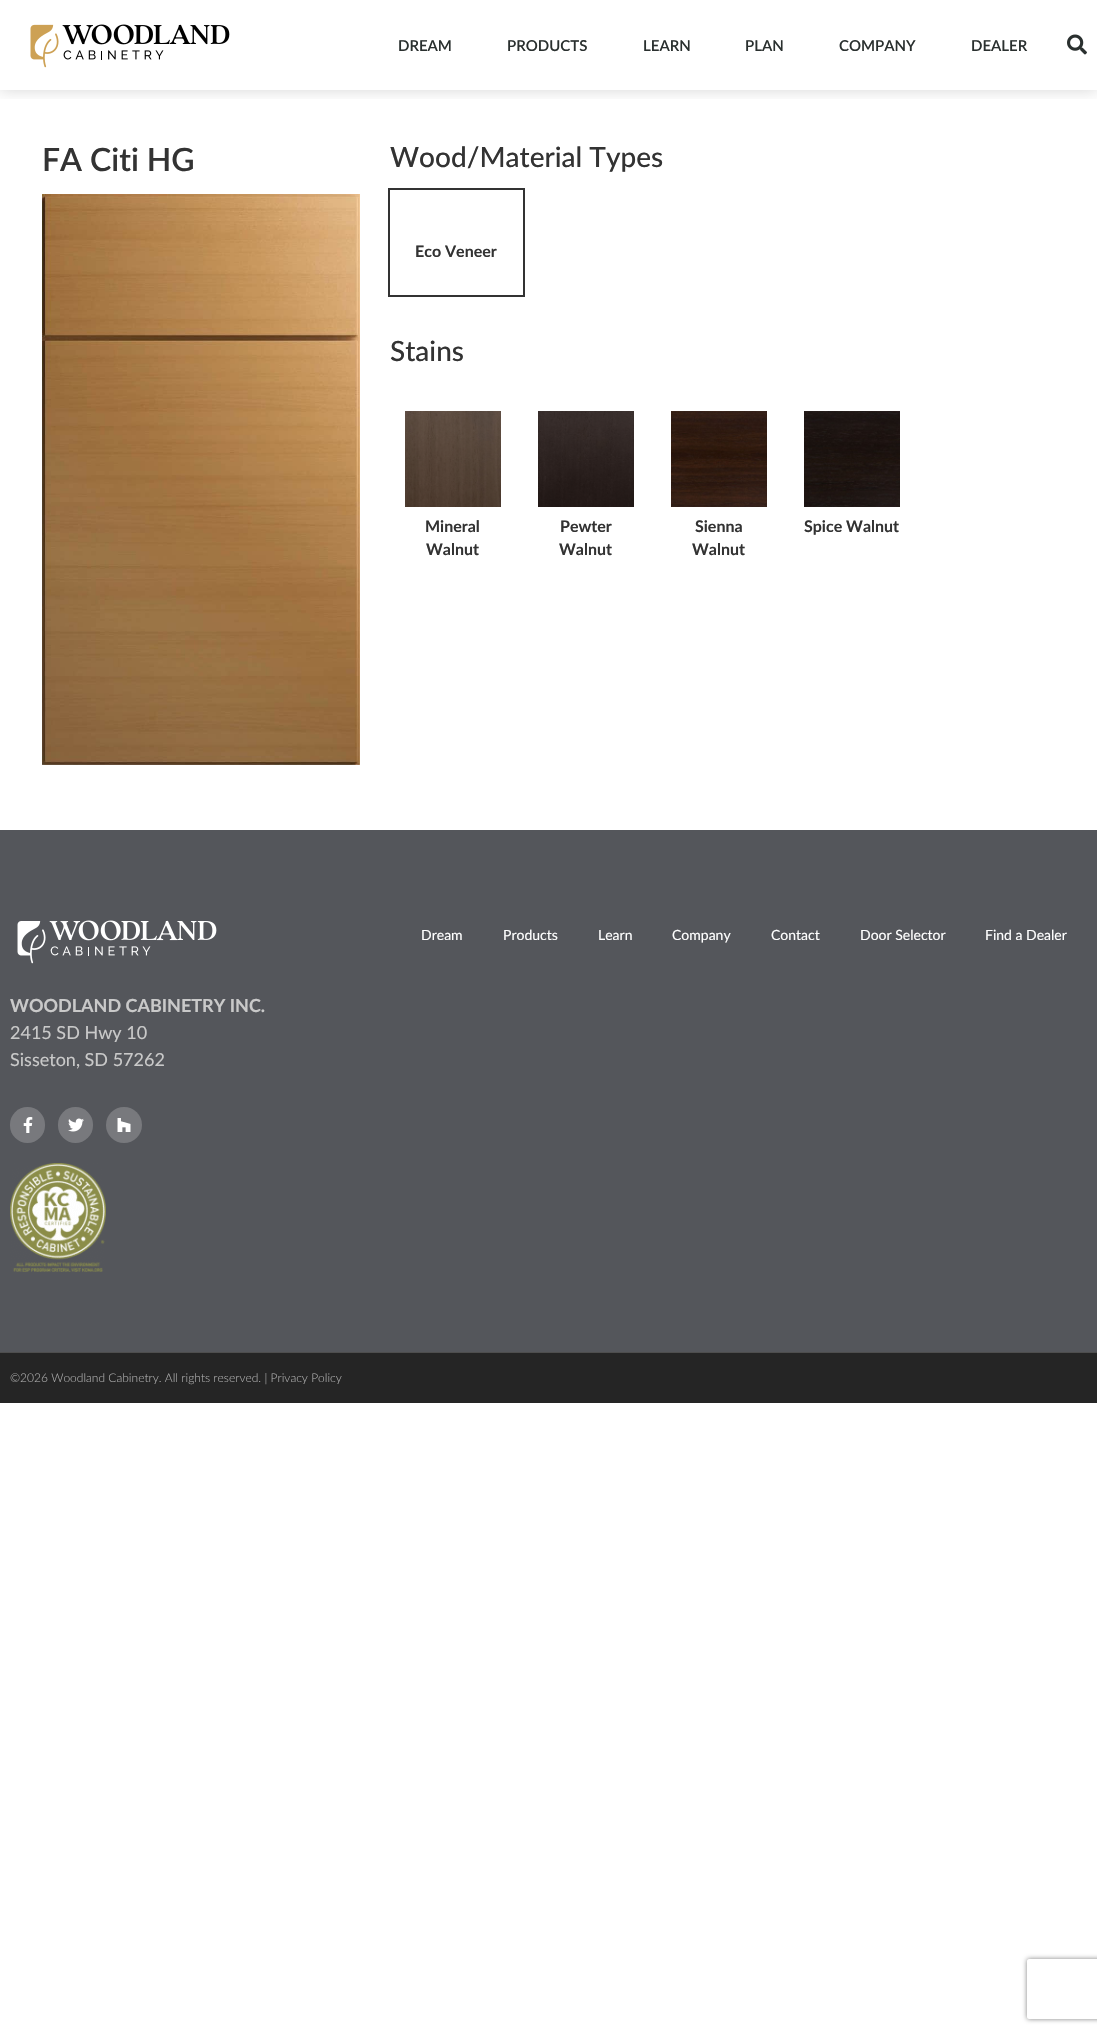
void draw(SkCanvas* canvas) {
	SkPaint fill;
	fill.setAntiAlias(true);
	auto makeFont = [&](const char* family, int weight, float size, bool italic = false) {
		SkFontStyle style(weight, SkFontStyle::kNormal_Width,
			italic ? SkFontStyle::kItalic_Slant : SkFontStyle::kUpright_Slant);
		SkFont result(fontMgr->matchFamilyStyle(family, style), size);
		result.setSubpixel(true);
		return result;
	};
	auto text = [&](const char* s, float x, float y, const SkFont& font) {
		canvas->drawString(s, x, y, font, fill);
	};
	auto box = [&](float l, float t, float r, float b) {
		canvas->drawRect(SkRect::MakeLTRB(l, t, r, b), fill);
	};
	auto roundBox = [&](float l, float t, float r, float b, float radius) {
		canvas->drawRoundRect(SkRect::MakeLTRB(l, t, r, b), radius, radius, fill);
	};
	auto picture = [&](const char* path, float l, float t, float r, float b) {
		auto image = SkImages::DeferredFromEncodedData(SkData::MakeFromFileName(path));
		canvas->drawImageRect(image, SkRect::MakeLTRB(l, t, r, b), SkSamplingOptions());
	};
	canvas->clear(0xFFFFFFFF);
	canvas->save();
	canvas->clipRect(SkRect::MakeLTRB(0, 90, 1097, 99));
	fill.setColor(0x29000000);
	fill.setMaskFilter(SkMaskFilter::MakeBlur(kNormal_SkBlurStyle, 7.5f));
	canvas->drawRect(SkRect::MakeLTRB(0, 0, 1097, 90), fill);
	fill.setMaskFilter(nullptr);
	canvas->restore();
	picture("image0.png", 30, 24, 230, 68);
	picture("image1.png", 1067, 34, 1087, 55);
	picture("image2.png", 42, 194, 360, 765);
	fill.setStyle(SkPaint::kStroke_Style);
	fill.setStrokeWidth(2);
	fill.setColor(0xFF333333);
	canvas->drawRect(SkRect::MakeLTRB(389, 189, 524, 296), fill);
	picture("image3.png", 405, 411, 501, 507);
	picture("image4.png", 538, 411, 634, 507);
	picture("image5.png", 671, 411, 767, 507);
	picture("image6.png", 804, 411, 900, 507);
	fill.setStyle(SkPaint::kFill_Style);
	fill.setColor(0xFF54565B);
	box(0, 830, 1097, 1352);
	picture("image7.png", 17, 920, 217, 964);
	fill.setColor(0xFF78797D);
	roundBox(10, 1107, 45, 1143, 17.5f);
	picture("image8.png", 23, 1117, 33, 1133);
	roundBox(58, 1107, 93, 1143, 17.5f);
	picture("image9.png", 68, 1118, 84, 1132);
	canvas->drawCircle(124, 1125, 18, fill);
	picture("image10.png", 117, 1118, 131, 1132);
	picture("image11.png", 10, 1163, 106, 1272);
	fill.setColor(0xFF252525);
	box(0, 1353, 1097, 1403);
	fill.setColor(0xFF4E4E4E);
	box(0, 1352, 1097, 1353);
	canvas->save();
	canvas->clipPath(SkPathBuilder(SkPathFillType::kEvenOdd).moveTo(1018, 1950).lineTo(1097, 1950).lineTo(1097, 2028).lineTo(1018, 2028).close().moveTo(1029, 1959).lineTo(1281, 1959).cubicTo(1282, 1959, 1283, 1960, 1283, 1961).lineTo(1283, 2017).cubicTo(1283, 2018, 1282, 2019, 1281, 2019).lineTo(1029, 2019).cubicTo(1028, 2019, 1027, 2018, 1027, 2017).lineTo(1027, 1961).cubicTo(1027, 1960, 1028, 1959, 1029, 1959).close().detach(), true);
	fill.setColor(0xFF808080);
	fill.setMaskFilter(SkMaskFilter::MakeBlur(kNormal_SkBlurStyle, 2.5f));
	canvas->drawRoundRect(SkRect::MakeLTRB(1027, 1959, 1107, 2019), 2, 2, fill);
	fill.setMaskFilter(nullptr);
	canvas->restore();
	auto font1 = makeFont("Lato", 600, 15);
	fill.setColor(0xFF2A302F);
	text("DREAM", 398, 51, font1);
	text("PRODUCTS", 507, 51, font1);
	text("LEARN", 643, 51, font1);
	text("PLAN", 745, 51, font1);
	text("COMPANY", 839, 51, font1);
	text("DEALER", 971, 51, font1);
	auto font2 = makeFont("Lato", 600, 32);
	fill.setColor(0xFF333333);
	text("FA Citi HG", 42, 171, font2);
	auto font3 = makeFont("Lato", 500, 28);
	text("Wood/Material Types", 390, 167, font3);
	auto font4 = makeFont("Lato", 700, 16);
	text("Eco Veneer", 415, 257, font4);
	text("Stains", 390, 361, font3);
	text("Mineral", 425, 532, font4);
	text("Walnut", 426, 555, font4);
	text("Pewter", 560, 532, font4);
	text("Walnut", 559, 555, font4);
	text("Sienna", 695, 532, font4);
	text("Walnut", 692, 555, font4);
	text("Spice Walnut", 804, 532, font4);
	auto font5 = makeFont("Lato", 400, 14);
	fill.setColor(0xFFFFFFFF);
	text("Dream", 421, 940, font5);
	text("Products", 503, 940, font5);
	text("Learn", 598, 940, font5);
	text("Company", 672, 940, font5);
	text("Contact", 771, 940, font5);
	text("Door Selector", 860, 940, font5);
	text("Find a Dealer", 985, 940, font5);
	auto font6 = makeFont("Lato", 700, 18);
	fill.setColor(0xFFC9C9C9);
	text("WOODLAND CABINETRY INC.", 10, 1012, font6);
	auto font7 = makeFont("Lato", 400, 18);
	text("2415 SD Hwy 10", 10, 1039, font7);
	text("Sisseton, SD 57262", 10, 1066, font7);
	auto font8 = makeFont("Lato", 300, 12);
	fill.setColor(0xFFADADAD);
	text("©2026 Woodland Cabinetry. All rights reserved. | Privacy Policy", 10, 1382, font8);
}
